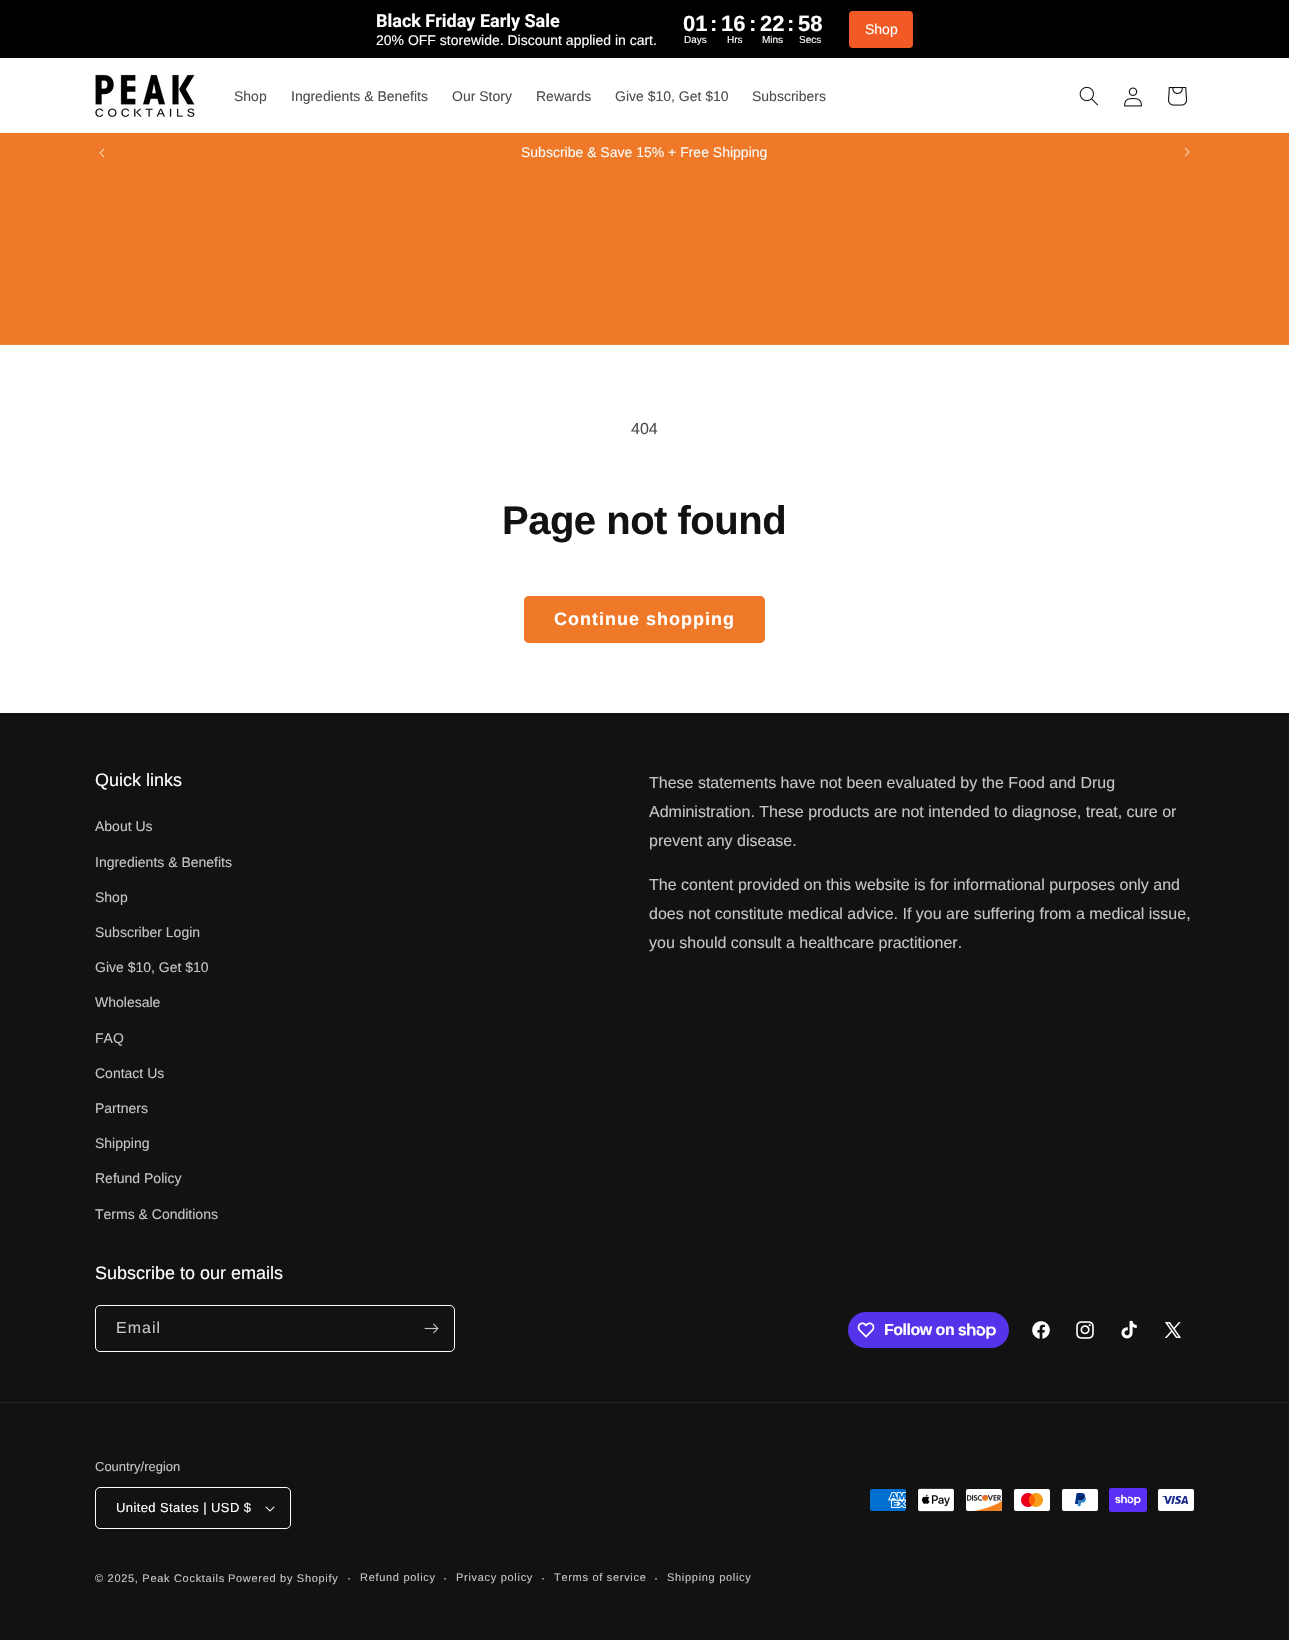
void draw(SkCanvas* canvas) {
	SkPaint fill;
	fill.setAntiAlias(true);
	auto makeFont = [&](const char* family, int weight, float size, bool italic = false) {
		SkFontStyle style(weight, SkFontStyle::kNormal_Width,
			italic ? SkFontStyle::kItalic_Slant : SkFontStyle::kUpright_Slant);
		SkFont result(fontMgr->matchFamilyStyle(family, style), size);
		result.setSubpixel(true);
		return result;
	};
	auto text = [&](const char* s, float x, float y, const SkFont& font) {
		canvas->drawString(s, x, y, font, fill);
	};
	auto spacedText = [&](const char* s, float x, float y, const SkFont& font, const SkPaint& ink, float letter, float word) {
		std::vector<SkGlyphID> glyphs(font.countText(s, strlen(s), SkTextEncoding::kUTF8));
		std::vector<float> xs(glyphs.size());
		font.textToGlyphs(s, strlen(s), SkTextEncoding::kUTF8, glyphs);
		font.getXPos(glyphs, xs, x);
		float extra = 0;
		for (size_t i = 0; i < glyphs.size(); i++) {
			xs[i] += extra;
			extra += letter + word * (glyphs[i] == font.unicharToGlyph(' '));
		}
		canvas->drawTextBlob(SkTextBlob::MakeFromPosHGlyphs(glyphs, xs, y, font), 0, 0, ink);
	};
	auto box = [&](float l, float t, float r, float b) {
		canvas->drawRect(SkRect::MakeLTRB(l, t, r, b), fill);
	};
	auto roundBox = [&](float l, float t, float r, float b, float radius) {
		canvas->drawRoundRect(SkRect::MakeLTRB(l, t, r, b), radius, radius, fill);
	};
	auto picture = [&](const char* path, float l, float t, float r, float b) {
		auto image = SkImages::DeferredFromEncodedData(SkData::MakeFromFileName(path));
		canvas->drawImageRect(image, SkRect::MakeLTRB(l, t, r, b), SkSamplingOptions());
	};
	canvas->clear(0xFFFFFFFF);
	fill.setColor(0xFF000000);
	box(0, 0, 1289, 58);
	fill.setColor(0xFFF15A24);
	roundBox(849, 11, 913, 48, 4);
	picture("image0.png", 95, 74, 195, 118);
	picture("image1.png", 1079, 86, 1098, 106);
	picture("image2.png", 1124, 87, 1142, 107);
	picture("image3.png", 1168, 87, 1188, 106);
	fill.setColor(0xFFEF7929);
	box(0, 133, 1289, 344);
	fill.setColor(0xFFF08339);
	box(0, 344, 1289, 345);
	picture("image4.png", 99, 148, 105, 158);
	picture("image5.png", 1184, 147, 1190, 157);
	fill.setColor(0xFFEF7929);
	roundBox(524, 596, 765, 643, 5);
	fill.setStyle(SkPaint::kStroke_Style);
	fill.setStrokeWidth(1);
	canvas->drawRoundRect(SkRect::MakeLTRB(524.5f, 596.5f, 764.5f, 642.5f), 4.5f, 4.5f, fill);
	fill.setStyle(SkPaint::kFill_Style);
	fill.setColor(0xFF121212);
	box(0, 713, 1289, 1640);
	fill.setStyle(SkPaint::kStroke_Style);
	fill.setColor(0xFFFFFFFF);
	canvas->drawRoundRect(SkRect::MakeLTRB(95.5f, 1305.5f, 454.5f, 1351.5f), 4.5f, 4.5f, fill);
	picture("image6.png", 424, 1323, 439, 1334);
	fill.setStyle(SkPaint::kFill_Style);
	fill.setColor(0xFF5433EB);
	roundBox(848, 1312, 1009, 1348, 18);
	picture("image7.png", 857, 1322, 875, 1338);
	picture("image8.png", 958, 1323, 996, 1339);
	picture("image9.png", 1032, 1321, 1050, 1339);
	picture("image10.png", 1076, 1321, 1094, 1339);
	picture("image11.png", 1121, 1320, 1137, 1339);
	picture("image12.png", 1164, 1322, 1181, 1338);
	fill.setColor(0xFF252525);
	box(0, 1402, 1289, 1403);
	picture("image13.png", 265, 1506, 275, 1512);
	fill.setStyle(SkPaint::kStroke_Style);
	fill.setColor(0xFFFFFFFF);
	canvas->drawRoundRect(SkRect::MakeLTRB(95.5f, 1487.5f, 290.5f, 1528.5f), 4.5f, 4.5f, fill);
	picture("image14.png", 870, 1489, 906, 1511);
	picture("image15.png", 917, 1488, 955, 1512);
	picture("image16.png", 966, 1489, 1002, 1511);
	picture("image17.png", 1014, 1489, 1050, 1511);
	picture("image18.png", 1062, 1489, 1098, 1511);
	picture("image19.png", 1109, 1488, 1147, 1512);
	picture("image20.png", 1158, 1489, 1194, 1511);
	auto font1 = makeFont("Roboto", 700, 18);
	fill.setStyle(SkPaint::kFill_Style);
	text("Black Friday Early Sale", 376, 27, font1);
	auto font2 = makeFont("Liberation Sans", 400, 14);
	text("20% OFF storewide. Discount applied in cart.", 376, 45, font2);
	auto font3 = makeFont("Liberation Sans", 700, 22);
	text("01", 683, 31, font3);
	text(":", 710, 31, font3);
	text("16", 721, 31, font3);
	text(":", 749, 31, font3);
	text("22", 760, 31, font3);
	text(":", 787, 31, font3);
	text("58", 798, 31, font3);
	auto font4 = makeFont("Liberation Sans", 400, 10);
	text("Days", 684, 43, font4);
	text("Hrs", 727, 43, font4);
	text("Mins", 762, 43, font4);
	text("Secs", 799, 43, font4);
	text("Shop", 865, 34, font2);
	fill.setColor(0xFF4D4D4D);
	text("Shop", 234, 101, font2);
	text("Ingredients & Benefits", 291, 101, font2);
	text("Our Story", 452, 101, font2);
	text("Rewards", 536, 101, font2);
	text("Give $10, Get $10", 615, 101, font2);
	text("Subscribers", 752, 101, font2);
	fill.setColor(0xFFF9F8F4);
	text("Subscribe & Save 15% + Free Shipping", 521, 157, font2);
	auto font5 = makeFont("Liberation Sans", 400, 16);
	fill.setColor(0xFF4D4D4D);
	text("404", 631, 434, font5);
	auto font6 = makeFont("Liberation Sans", 700, 40);
	fill.setColor(0xFF121212);
	spacedText("Page not found", 502, 534, font6, fill, -0.5f, 0);
	auto font7 = makeFont("Liberation Sans", 700, 18);
	fill.setColor(0xFFFFFFFF);
	spacedText("Continue shopping", 554, 625, font7, fill, 1, 0);
	auto font8 = makeFont("Liberation Sans", 400, 18);
	text("Quick links", 95, 786, font8);
	fill.setColor(0xFFC4C4C4);
	text("About Us", 95, 831, font2);
	text("Ingredients & Benefits", 95, 867, font2);
	text("Shop", 95, 902, font2);
	text("Subscriber Login", 95, 937, font2);
	text("Give $10, Get $10", 95, 972, font2);
	text("Wholesale", 95, 1007, font2);
	text("FAQ", 95, 1043, font2);
	text("Contact Us", 95, 1078, font2);
	text("Partners", 95, 1113, font2);
	text("Shipping", 95, 1148, font2);
	text("Refund Policy", 95, 1183, font2);
	text("Terms & Conditions", 95, 1219, font2);
	text("These statements have not been evaluated by the Food and Drug", 649, 788, font5);
	text("Administration. These products are not intended to diagnose, treat, cure or", 649, 817, font5);
	text("prevent any disease.", 649, 846, font5);
	text("The content provided on this website is for informational purposes only and", 649, 890, font5);
	text("does not constitute medical advice. If you are suffering from a medical issue,", 649, 919, font5);
	text("you should consult a healthcare practitioner.", 649, 948, font5);
	fill.setColor(0xFFFFFFFF);
	text("Subscribe to our emails", 95, 1279, font8);
	fill.setColor(0xFFC4C4C4);
	spacedText("Email", 116, 1333, font5, fill, 1, 0);
	auto font9 = makeFont("Liberation Sans", 700, 16);
	fill.setColor(0xFFFFFFFF);
	spacedText("Follow on", 884, 1335, font9, fill, -0.5f, 0);
	auto font10 = makeFont("Liberation Sans", 400, 13);
	fill.setColor(0xFFC4C4C4);
	text("Country/region", 95, 1471, font10);
	fill.setColor(0xFFFFFFFF);
	spacedText("United States | USD $", 116, 1512, font10, fill, 0.4f, 0);
	auto font11 = makeFont("Liberation Sans", 400, 11);
	fill.setColor(0xFFC4C4C4);
	spacedText("© 2025, Peak Cocktails", 95, 1582, font11, fill, 0.7f, 0);
	spacedText("Powered by Shopify", 228, 1582, font11, fill, 0.7f, 0);
	auto font12 = makeFont("Liberation Sans", 400, 12);
	spacedText("·", 347, 1582, font12, fill, 0.7f, 0);
	spacedText("Refund policy", 360, 1581, font11, fill, 0.7f, 0);
	spacedText("·", 443, 1582, font12, fill, 0.7f, 0);
	spacedText("Privacy policy", 456, 1581, font11, fill, 0.7f, 0);
	spacedText("·", 541, 1582, font12, fill, 0.7f, 0);
	spacedText("Terms of service", 554, 1581, font11, fill, 0.7f, 0);
	spacedText("·", 654, 1582, font12, fill, 0.7f, 0);
	spacedText("Shipping policy", 667, 1581, font11, fill, 0.7f, 0);
}
